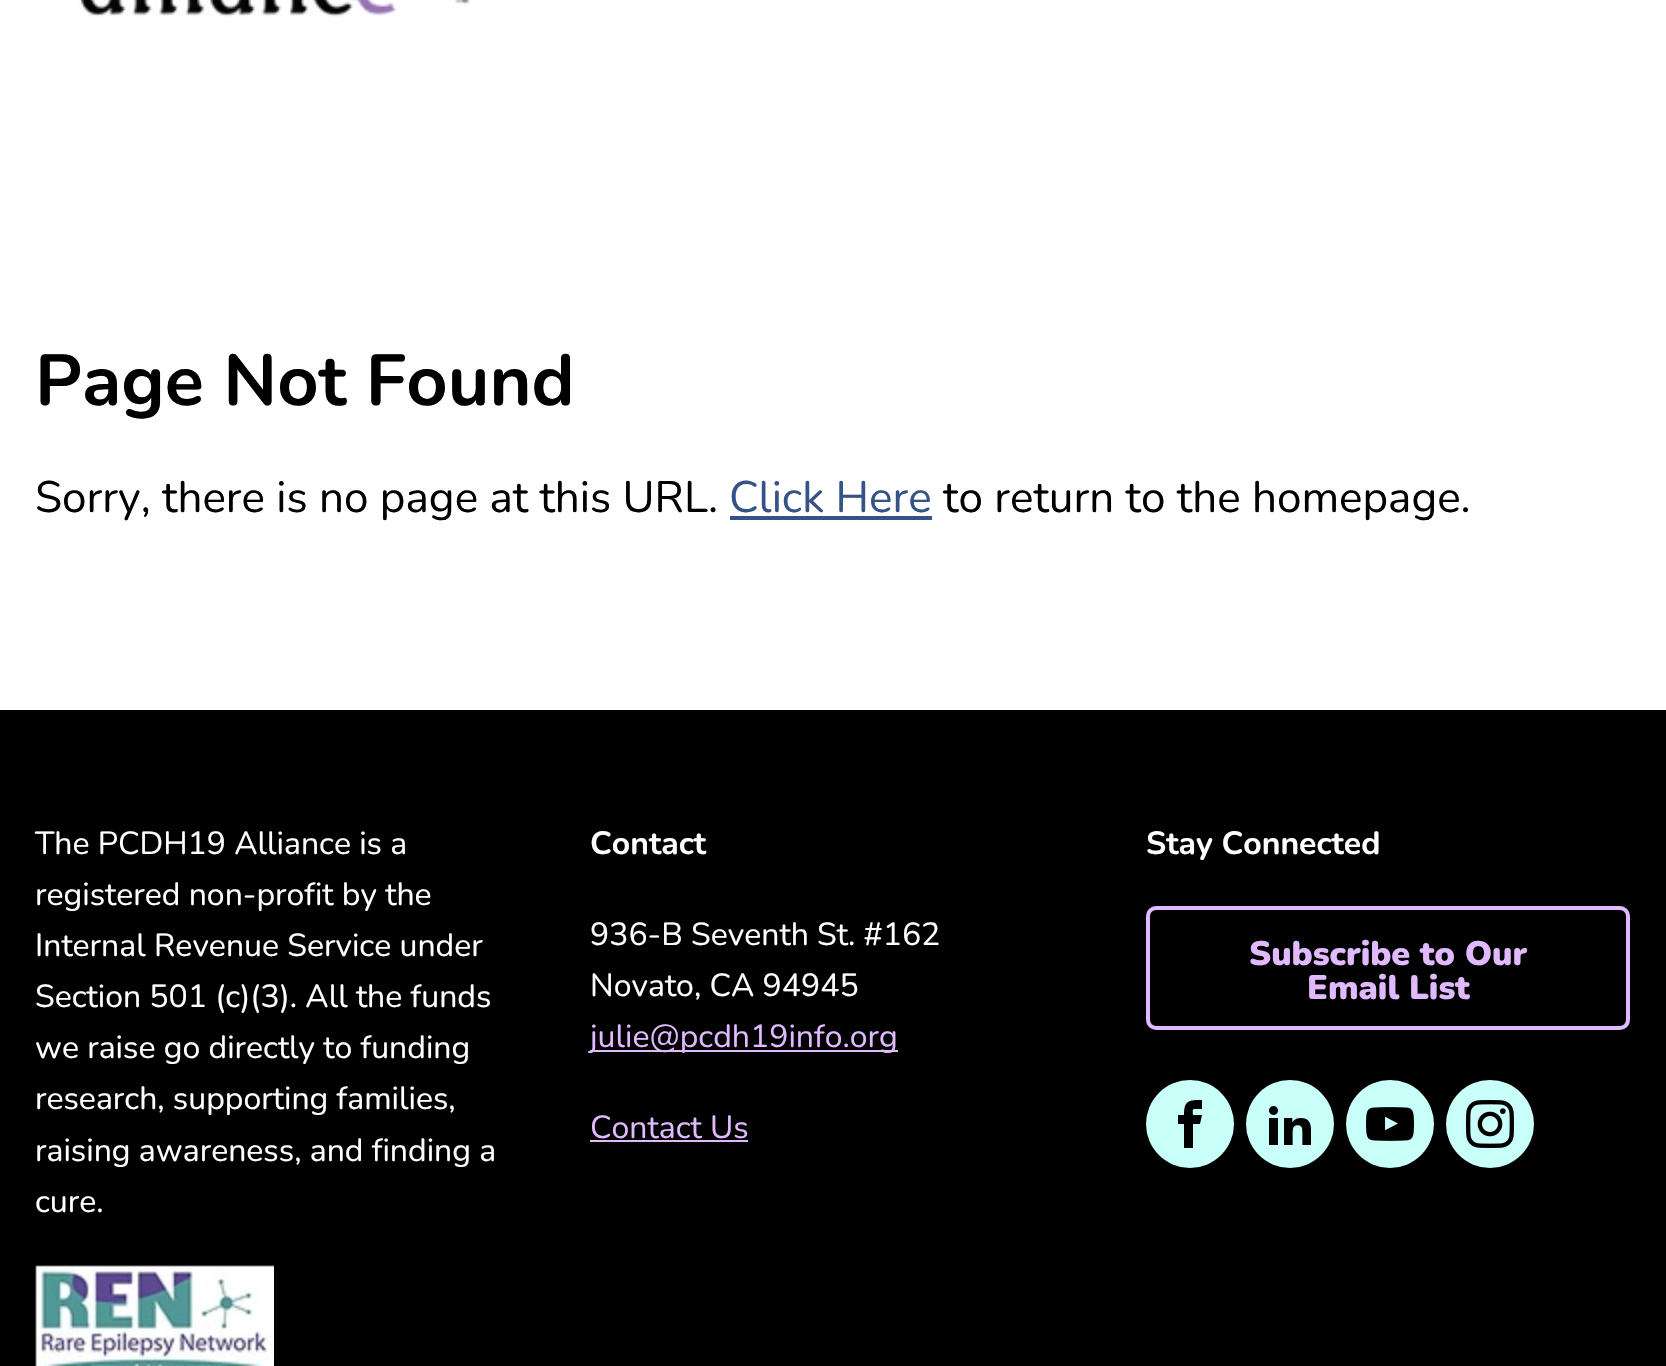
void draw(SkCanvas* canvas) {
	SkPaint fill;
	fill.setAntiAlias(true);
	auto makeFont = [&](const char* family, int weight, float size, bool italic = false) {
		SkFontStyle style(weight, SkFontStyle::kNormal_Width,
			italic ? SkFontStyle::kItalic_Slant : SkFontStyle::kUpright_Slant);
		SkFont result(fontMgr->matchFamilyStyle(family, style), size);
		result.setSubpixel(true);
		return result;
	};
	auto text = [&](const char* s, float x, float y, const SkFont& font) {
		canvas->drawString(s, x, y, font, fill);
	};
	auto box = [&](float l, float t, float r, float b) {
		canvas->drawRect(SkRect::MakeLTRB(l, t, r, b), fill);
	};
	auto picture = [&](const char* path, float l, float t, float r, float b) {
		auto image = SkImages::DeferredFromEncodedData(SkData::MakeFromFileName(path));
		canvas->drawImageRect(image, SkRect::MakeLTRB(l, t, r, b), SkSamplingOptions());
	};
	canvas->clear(0xFFFFFFFF);
	picture("image0.png", 79, 0, 470, 17);
	fill.setColor(0xFF365387);
	box(730, 516, 932, 520);
	fill.setColor(0xFF000000);
	box(0, 710, 1666, 1366);
	picture("image1.png", 35, 1265, 274, 1366);
	fill.setColor(0xFFE1B9FF);
	box(590, 1050, 898, 1052);
	box(590, 1140, 748, 1142);
	fill.setStyle(SkPaint::kStroke_Style);
	fill.setStrokeWidth(4);
	canvas->drawRoundRect(SkRect::MakeLTRB(1148, 908, 1628, 1028), 8, 8, fill);
	fill.setStyle(SkPaint::kFill_Style);
	fill.setColor(0xFFC8FFF9);
	canvas->drawCircle(1190, 1124, 44, fill);
	fill.setColor(0xFF000000);
	canvas->drawPath(SkPathBuilder().moveTo(1194, 1109).lineTo(1202, 1109).lineTo(1202, 1100).cubicTo(1189, 1100, 1184, 1100, 1184, 1115).lineTo(1178, 1115).lineTo(1178, 1124).lineTo(1184, 1124).lineTo(1184, 1148).lineTo(1193, 1148).lineTo(1193, 1124).lineTo(1200, 1124).lineTo(1202, 1115).lineTo(1193, 1115).cubicTo(1193, 1114, 1192, 1109, 1194, 1109).close().detach(), fill);
	fill.setColor(0xFFC8FFF9);
	canvas->drawCircle(1290, 1124, 44, fill);
	picture("image2.png", 1269, 1106, 1311, 1145);
	canvas->drawCircle(1390, 1124, 44, fill);
	picture("image3.png", 1366, 1107, 1414, 1141);
	canvas->drawCircle(1490, 1124, 44, fill);
	picture("image4.png", 1466, 1100, 1514, 1148);
	auto font1 = makeFont("Nunito", 700, 72);
	fill.setColor(0xFF000000);
	text("Page Not Found", 35, 405, font1);
	auto font2 = makeFont("Nunito", 400, 44);
	text("Sorry, there is no page at this URL.", 35, 512, font2);
	fill.setColor(0xFF365387);
	text("Click Here", 729, 512, font2);
	fill.setColor(0xFF000000);
	text("to return to the homepage.", 943, 512, font2);
	auto font3 = makeFont("Nunito", 400, 32);
	fill.setColor(0xFFFFFFFF);
	text("The PCDH19 Alliance is a", 35, 854, font3);
	text("registered non-profit by the", 35, 905, font3);
	text("Internal Revenue Service under", 35, 956, font3);
	text("Section 501 (c)(3). All the funds", 35, 1007, font3);
	text("we raise go directly to funding", 35, 1058, font3);
	text("research, supporting families,", 35, 1109, font3);
	text("raising awareness, and finding a", 35, 1161, font3);
	text("cure.", 35, 1212, font3);
	auto font4 = makeFont("Nunito", 700, 32);
	text("Contact", 590, 854, font4);
	text("936-B Seventh St. #162", 590, 945, font3);
	text("Novato, CA 94945", 590, 996, font3);
	fill.setColor(0xFFE1B9FF);
	text("julie@pcdh19info.org", 590, 1047, font3);
	text("Contact Us", 590, 1138, font3);
	fill.setColor(0xFFFFFFFF);
	text("Stay Connected", 1146, 854, font4);
	auto font5 = makeFont("Nunito", 900, 34);
	fill.setColor(0xFFE1B9FF);
	text("Subscribe to Our", 1249, 965, font5);
	text("Email List", 1307, 999, font5);
}
